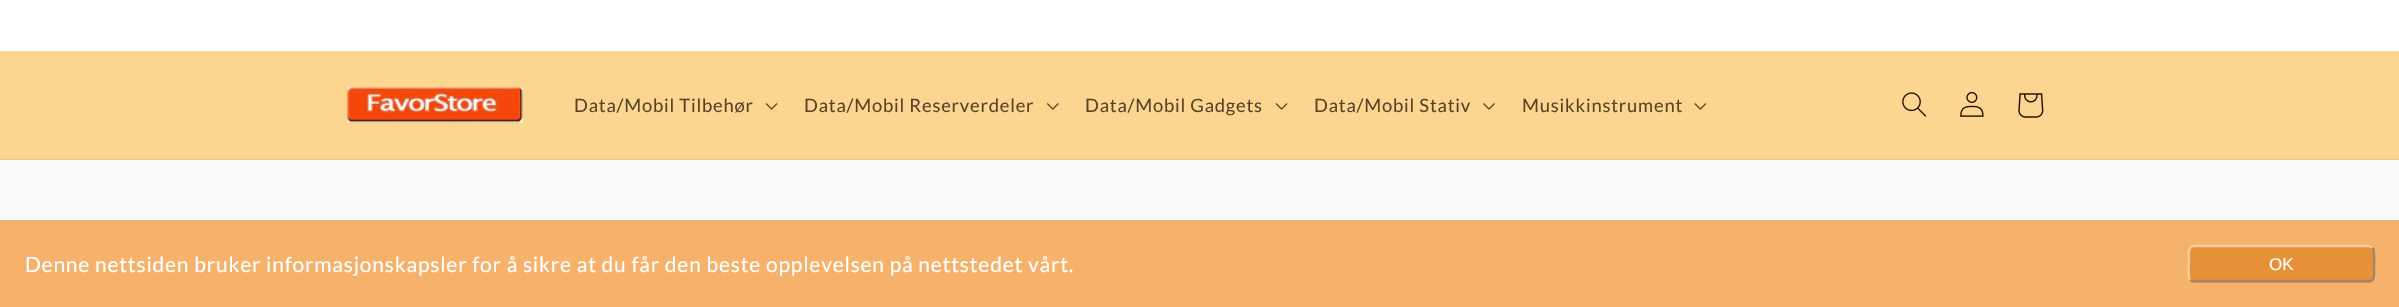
void draw(SkCanvas* canvas) {
	SkPaint fill;
	fill.setAntiAlias(true);
	auto makeFont = [&](const char* family, int weight, float size, bool italic = false) {
		SkFontStyle style(weight, SkFontStyle::kNormal_Width,
			italic ? SkFontStyle::kItalic_Slant : SkFontStyle::kUpright_Slant);
		SkFont result(fontMgr->matchFamilyStyle(family, style), size);
		result.setSubpixel(true);
		return result;
	};
	auto text = [&](const char* s, float x, float y, const SkFont& font) {
		canvas->drawString(s, x, y, font, fill);
	};
	auto spacedText = [&](const char* s, float x, float y, const SkFont& font, const SkPaint& ink, float letter, float word) {
		std::vector<SkGlyphID> glyphs(font.countText(s, strlen(s), SkTextEncoding::kUTF8));
		std::vector<float> xs(glyphs.size());
		font.textToGlyphs(s, strlen(s), SkTextEncoding::kUTF8, glyphs);
		font.getXPos(glyphs, xs, x);
		float extra = 0;
		for (size_t i = 0; i < glyphs.size(); i++) {
			xs[i] += extra;
			extra += letter + word * (glyphs[i] == font.unicharToGlyph(' '));
		}
		canvas->drawTextBlob(SkTextBlob::MakeFromPosHGlyphs(glyphs, xs, y, font), 0, 0, ink);
	};
	auto box = [&](float l, float t, float r, float b) {
		canvas->drawRect(SkRect::MakeLTRB(l, t, r, b), fill);
	};
	auto roundBox = [&](float l, float t, float r, float b, float radius) {
		canvas->drawRoundRect(SkRect::MakeLTRB(l, t, r, b), radius, radius, fill);
	};
	auto picture = [&](const char* path, float l, float t, float r, float b) {
		auto image = SkImages::DeferredFromEncodedData(SkData::MakeFromFileName(path));
		canvas->drawImageRect(image, SkRect::MakeLTRB(l, t, r, b), SkSamplingOptions());
	};
	canvas->clear(0xFFFAFAFA);
	fill.setColor(0xFFFFFFFF);
	box(0, 0, 2399, 51);
	fill.setColor(0xFFFCD691);
	box(0, 51, 2399, 159);
	fill.setColor(0xFFEBC686);
	box(0, 159, 2399, 160);
	picture("image0.png", 347, 87, 523, 123);
	picture("image1.png", 765, 103, 778, 110);
	picture("image2.png", 1047, 103, 1059, 110);
	picture("image1.png", 1275, 103, 1288, 110);
	picture("image3.png", 1483, 103, 1495, 110);
	picture("image4.png", 1694, 103, 1707, 110);
	picture("image5.png", 1902, 92, 1927, 117);
	picture("image6.png", 1960, 91, 1984, 117);
	picture("image7.png", 2018, 93, 2044, 118);
	fill.setColor(0xFFF6B26B);
	box(0, 220, 2399, 307);
	fill.setColor(0xFFE69138);
	roundBox(2188, 245, 2375, 283, 6);
	fill.setStyle(SkPaint::kStroke_Style);
	fill.setStrokeWidth(2.5f);
	fill.setColor(0xFFA68768);
	canvas->drawPath(SkPathBuilder().moveTo(2372.5f, 247.5f).cubicTo(2375, 250.5f, 2374, 264, 2374, 268).cubicTo(2374, 272, 2375.5f, 281, 2369, 281).lineTo(2194, 281).cubicTo(2192.5f, 281, 2191, 280.5f, 2190, 280).detach(), fill);
	fill.setColor(0xFFF9CB9C);
	canvas->drawPath(SkPathBuilder().moveTo(2190, 280).cubicTo(2187.5f, 277, 2189, 263.5f, 2189, 259.5f).cubicTo(2189, 255.5f, 2187, 246.5f, 2194, 246).lineTo(2369, 246).cubicTo(2370, 246.5f, 2371.5f, 247, 2372.5f, 247.5f).detach(), fill);
	auto font1 = makeFont("Lato", 400, 18.4f);
	fill.setStyle(SkPaint::kFill_Style);
	fill.setColor(0xFF594327);
	spacedText("Data/Mobil Tilbehør", 574, 112, font1, fill, 0.79f, 0);
	spacedText("Data/Mobil Reserverdeler", 804, 112, font1, fill, 0.79f, 0);
	spacedText("Data/Mobil Gadgets", 1085, 112, font1, fill, 0.79f, 0);
	spacedText("Data/Mobil Stativ", 1314, 112, font1, fill, 0.79f, 0);
	spacedText("Musikkinstrument", 1522, 112, font1, fill, 0.79f, 0);
	auto font2 = makeFont("Lato", 400, 21);
	fill.setColor(0xFFFFFFFF);
	spacedText("Denne nettsiden bruker informasjonskapsler for å sikre at du får den beste opplevelsen på nettstedet vårt.", 25, 272, font2, fill, 0.79f, 0);
	auto font3 = makeFont("Liberation Sans", 400, 17);
	text("OK", 2269, 270, font3);
}
